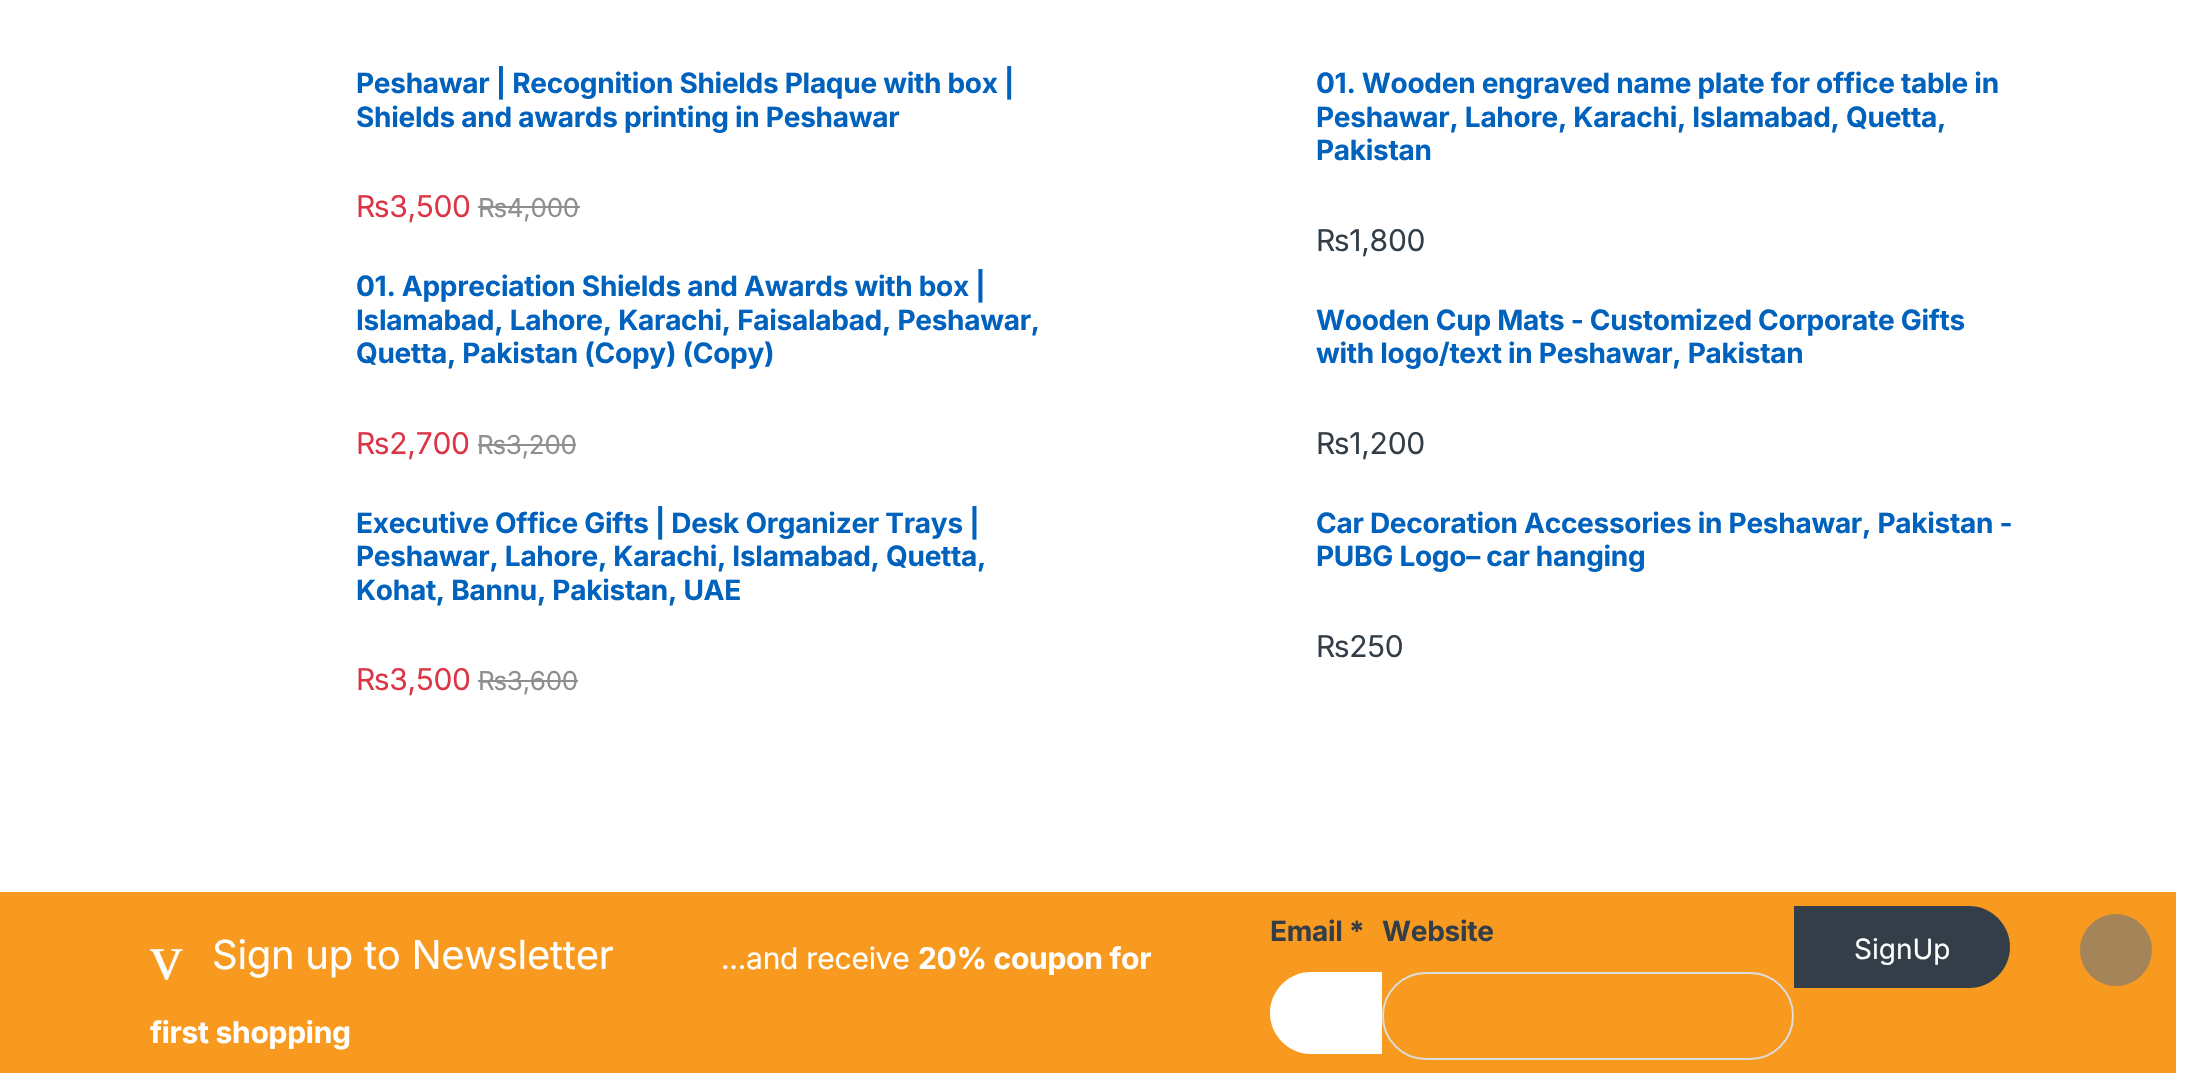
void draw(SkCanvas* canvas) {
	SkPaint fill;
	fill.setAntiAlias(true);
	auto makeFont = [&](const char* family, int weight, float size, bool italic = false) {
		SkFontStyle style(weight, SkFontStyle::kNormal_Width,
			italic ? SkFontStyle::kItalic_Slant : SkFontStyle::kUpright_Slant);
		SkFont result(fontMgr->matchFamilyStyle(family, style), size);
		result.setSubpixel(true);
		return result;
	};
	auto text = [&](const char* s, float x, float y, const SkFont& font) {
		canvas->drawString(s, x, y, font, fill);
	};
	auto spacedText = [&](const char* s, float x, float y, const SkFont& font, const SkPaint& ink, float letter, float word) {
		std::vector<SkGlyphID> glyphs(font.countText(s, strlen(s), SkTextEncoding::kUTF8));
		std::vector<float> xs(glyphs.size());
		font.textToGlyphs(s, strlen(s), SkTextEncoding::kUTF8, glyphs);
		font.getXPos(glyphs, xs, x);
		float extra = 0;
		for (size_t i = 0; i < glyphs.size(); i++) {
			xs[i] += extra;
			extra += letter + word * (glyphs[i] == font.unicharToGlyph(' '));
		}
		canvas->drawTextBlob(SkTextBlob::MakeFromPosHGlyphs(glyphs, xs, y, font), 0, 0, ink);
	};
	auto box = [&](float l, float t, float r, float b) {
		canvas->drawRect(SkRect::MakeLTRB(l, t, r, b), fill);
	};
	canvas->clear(0xFFFFFFFF);
	fill.setColor(0xFF8F8F8F);
	box(478, 206, 580, 208);
	box(478, 444, 576, 446);
	box(478, 680, 578, 682);
	fill.setColor(0xFFF89A20);
	box(0, 892, 2176, 1073);
	fill.setColor(0xFFFFFFFF);
	canvas->drawPath(SkPathBuilder().moveTo(1311, 972).lineTo(1382, 972).lineTo(1382, 1054).lineTo(1311, 1054).cubicTo(1288.5f, 1054, 1270, 1035.5f, 1270, 1013).cubicTo(1270, 990.5f, 1288.5f, 972, 1311, 972).close().detach(), fill);
	fill.setStyle(SkPaint::kStroke_Style);
	fill.setStrokeWidth(2);
	fill.setColor(0xFFDDDDDD);
	canvas->drawRoundRect(SkRect::MakeLTRB(1383, 973, 1793, 1059), 43, 43, fill);
	fill.setStyle(SkPaint::kFill_Style);
	fill.setColor(0xFF333E48);
	canvas->drawPath(SkPathBuilder().moveTo(1794, 906).lineTo(1969, 906).cubicTo(1991.5f, 906, 2010, 924.5f, 2010, 947).cubicTo(2010, 969.5f, 1991.5f, 988, 1969, 988).lineTo(1794, 988).close().detach(), fill);
	fill.setColor(0xFFA48458);
	canvas->drawCircle(2116, 950, 35, fill);
	fill.setStyle(SkPaint::kStroke_Style);
	canvas->drawCircle(2116, 950, 35, fill);
	auto font1 = makeFont("Inter", 700, 28);
	fill.setStyle(SkPaint::kFill_Style);
	fill.setColor(0xFF0062BD);
	spacedText("Peshawar | Recognition Shields Plaque with box |", 356, 93, font1, fill, -0.28f, 0);
	spacedText("Shields and awards printing in Peshawar", 356, 127, font1, fill, -0.28f, 0);
	auto font2 = makeFont("Inter", 400, 30);
	fill.setColor(0xFFDC3545);
	spacedText("₨3,500", 356, 217, font2, fill, -0.28f, 0);
	auto font3 = makeFont("Inter", 400, 26);
	fill.setColor(0xFF8F8F8F);
	spacedText("₨4,000", 478, 217, font3, fill, -0.28f, 0);
	fill.setColor(0xFF0062BD);
	spacedText("01. Appreciation Shields and Awards with box |", 356, 296, font1, fill, -0.28f, 0);
	spacedText("Islamabad, Lahore, Karachi, Faisalabad, Peshawar,", 356, 330, font1, fill, -0.28f, 0);
	spacedText("Quetta, Pakistan (Copy) (Copy)", 356, 363, font1, fill, -0.28f, 0);
	fill.setColor(0xFFDC3545);
	spacedText("₨2,700", 356, 454, font2, fill, -0.28f, 0);
	fill.setColor(0xFF8F8F8F);
	spacedText("₨3,200", 477, 454, font3, fill, -0.28f, 0);
	fill.setColor(0xFF0062BD);
	spacedText("Executive Office Gifts | Desk Organizer Trays |", 356, 533, font1, fill, -0.28f, 0);
	spacedText("Peshawar, Lahore, Karachi, Islamabad, Quetta,", 356, 566, font1, fill, -0.28f, 0);
	spacedText("Kohat, Bannu, Pakistan, UAE", 356, 600, font1, fill, -0.28f, 0);
	fill.setColor(0xFFDC3545);
	spacedText("₨3,500", 356, 690, font2, fill, -0.28f, 0);
	fill.setColor(0xFF8F8F8F);
	spacedText("₨3,600", 478, 690, font3, fill, -0.28f, 0);
	fill.setColor(0xFF0062BD);
	spacedText("01. Wooden engraved name plate for office table in", 1316, 93, font1, fill, -0.28f, 0);
	spacedText("Peshawar, Lahore, Karachi, Islamabad, Quetta,", 1316, 127, font1, fill, -0.28f, 0);
	spacedText("Pakistan", 1316, 160, font1, fill, -0.28f, 0);
	fill.setColor(0xFF333E48);
	spacedText("₨1,800", 1316, 251, font2, fill, -0.28f, 0);
	fill.setColor(0xFF0062BD);
	spacedText("Wooden Cup Mats - Customized Corporate Gifts", 1316, 330, font1, fill, -0.28f, 0);
	spacedText("with logo/text in Peshawar, Pakistan", 1316, 363, font1, fill, -0.28f, 0);
	fill.setColor(0xFF333E48);
	spacedText("₨1,200", 1316, 454, font2, fill, -0.28f, 0);
	fill.setColor(0xFF0062BD);
	spacedText("Car Decoration Accessories in Peshawar, Pakistan -", 1316, 533, font1, fill, -0.28f, 0);
	spacedText("PUBG Logo– car hanging", 1316, 566, font1, fill, -0.28f, 0);
	fill.setColor(0xFF333E48);
	spacedText("₨250", 1316, 657, font2, fill, -0.28f, 0);
	auto font4 = makeFont("Liberation Serif", 400, 65);
	fill.setColor(0xFFFFFFFF);
	spacedText("v", 150, 979, font4, fill, -0.28f, 0);
	auto font5 = makeFont("Inter", 400, 40);
	spacedText("Sign up to Newsletter", 212, 969, font5, fill, -0.28f, 0);
	spacedText("...and receive", 721, 969, font2, fill, -0.28f, 0);
	auto font6 = makeFont("Inter", 700, 30);
	spacedText("20% coupon for", 918, 969, font6, fill, -0.28f, 0);
	spacedText("first shopping", 150, 1043, font6, fill, -0.28f, 0);
	fill.setColor(0xFF333E48);
	spacedText("Email *", 1270, 941, font1, fill, -0.28f, 0);
	spacedText("Website", 1382, 941, font1, fill, -0.28f, 0);
	auto font7 = makeFont("Inter", 400, 28);
	fill.setColor(0xFFFFFFFF);
	text("SignUp", 1854, 959, font7);
}
